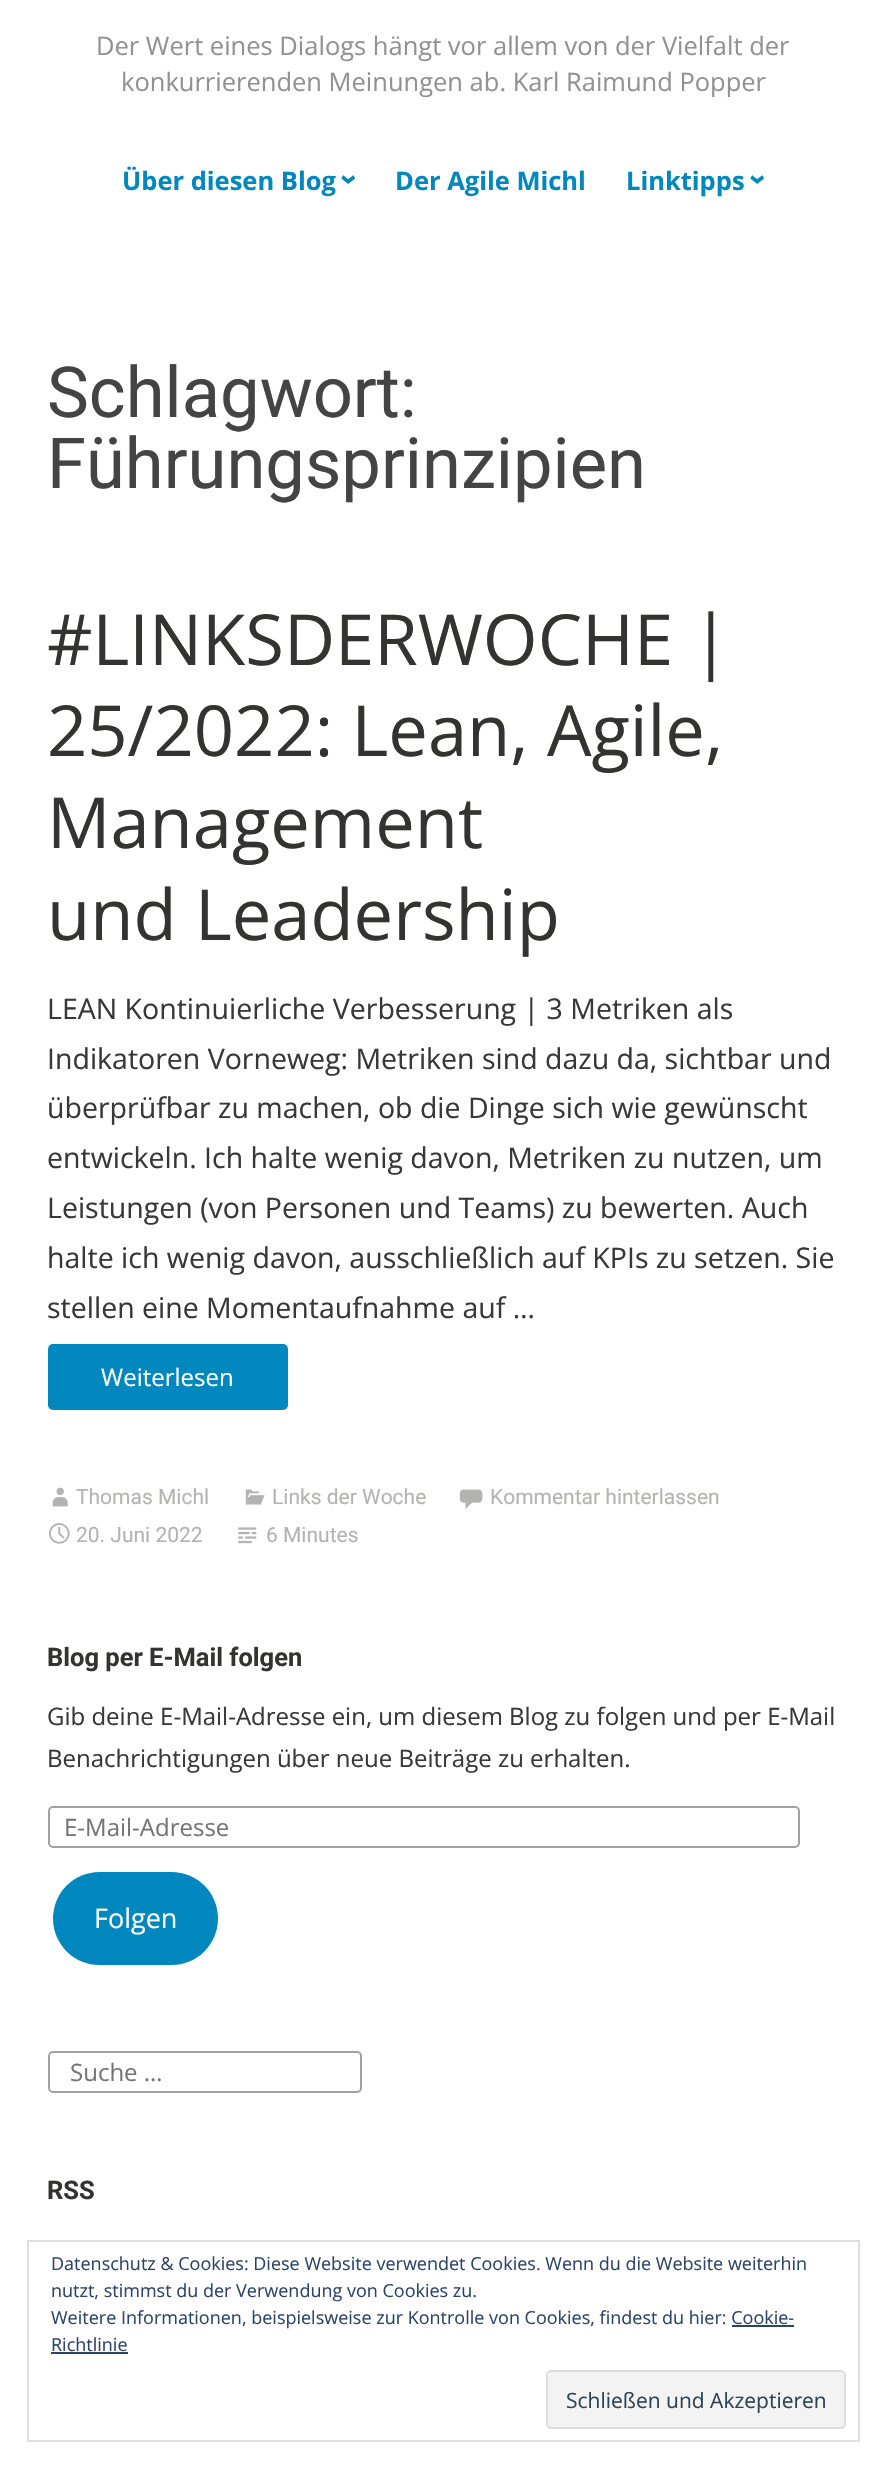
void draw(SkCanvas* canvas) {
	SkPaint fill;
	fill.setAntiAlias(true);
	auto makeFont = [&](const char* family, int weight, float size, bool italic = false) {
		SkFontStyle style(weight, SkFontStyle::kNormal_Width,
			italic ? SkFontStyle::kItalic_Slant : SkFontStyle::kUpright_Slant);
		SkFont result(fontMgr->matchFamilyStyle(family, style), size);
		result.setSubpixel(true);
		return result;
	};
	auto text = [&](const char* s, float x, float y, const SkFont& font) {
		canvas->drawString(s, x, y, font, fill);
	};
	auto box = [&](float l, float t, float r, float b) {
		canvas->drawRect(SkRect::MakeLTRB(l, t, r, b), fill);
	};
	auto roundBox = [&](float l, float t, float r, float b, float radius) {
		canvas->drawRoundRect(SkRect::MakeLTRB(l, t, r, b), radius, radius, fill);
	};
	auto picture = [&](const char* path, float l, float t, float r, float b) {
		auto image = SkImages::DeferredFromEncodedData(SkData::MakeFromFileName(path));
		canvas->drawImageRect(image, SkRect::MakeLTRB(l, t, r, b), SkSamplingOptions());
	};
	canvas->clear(0xFFFFFFFF);
	fill.setColor(0xFF0087BE);
	roundBox(48, 1344, 288, 1410, 5);
	picture("image0.png", 52, 1487, 68, 1507);
	picture("image1.png", 245, 1489, 265, 1505);
	picture("image2.png", 459, 1489, 483, 1509);
	picture("image3.png", 49, 1523, 70, 1544);
	picture("image4.png", 238, 1527, 257, 1544);
	fill.setStyle(SkPaint::kStroke_Style);
	fill.setStrokeWidth(2);
	fill.setColor(0xFFA1A1A1);
	canvas->drawRoundRect(SkRect::MakeLTRB(49, 1807, 799, 1847), 4, 4, fill);
	fill.setStyle(SkPaint::kFill_Style);
	fill.setColor(0xFF0087BE);
	roundBox(53, 1872, 218, 1965, 46.5f);
	fill.setStyle(SkPaint::kStroke_Style);
	fill.setColor(0xFFA1A1A1);
	canvas->drawRoundRect(SkRect::MakeLTRB(49, 2052, 361, 2092), 4, 4, fill);
	fill.setColor(0xFFDEDEDE);
	canvas->drawRect(SkRect::MakeLTRB(28, 2241, 859, 2441), fill);
	fill.setStyle(SkPaint::kFill_Style);
	fill.setColor(0xFF2E4467);
	box(732, 2325, 794, 2327);
	box(51, 2352, 128, 2354);
	fill.setColor(0xFFF3F3F3);
	canvas->drawRoundRect(SkRect::MakeLTRB(547, 2371, 845, 2428), 4, 4, fill);
	fill.setStyle(SkPaint::kStroke_Style);
	fill.setColor(0xFFDEDEDE);
	canvas->drawRoundRect(SkRect::MakeLTRB(547, 2371, 845, 2428), 4, 4, fill);
	auto font1 = makeFont("Open Sans", 400, 25.5f);
	fill.setStyle(SkPaint::kFill_Style);
	fill.setColor(0xFF929292);
	text("Der Wert eines Dialogs hängt vor allem von der Vielfalt der", 96, 55, font1);
	text("konkurrierenden Meinungen ab. Karl Raimund Popper", 121, 91, font1);
	auto font2 = makeFont("Open Sans", 700, 25.5f);
	fill.setColor(0xFF0087BE);
	text("Über diesen Blog", 122, 190, font2);
	auto font3 = makeFont("Open Sans", 700, 30);
	canvas->save();
	canvas->rotate(90, 340, 174);
	text("›", 340, 174, font3);
	canvas->restore();
	text("Der Agile Michl", 395, 190, font2);
	text("Linktipps", 626, 190, font2);
	canvas->save();
	canvas->rotate(90, 749, 174);
	text("›", 749, 174, font3);
	canvas->restore();
	auto font4 = makeFont("Roboto", 400, 70.5f);
	fill.setColor(0xFF444444);
	text("Schlagwort:", 47, 417, font4);
	text("Führungsprinzipien", 47, 488, font4);
	auto font5 = makeFont("Open Sans", 400, 70.5f);
	fill.setColor(0xFF333332);
	text("#LINKSDERWOCHE |", 47, 665, font5);
	text("25/2022: Lean, Agile,", 47, 756, font5);
	text("Management", 47, 848, font5);
	text("und Leadership", 47, 940, font5);
	auto font6 = makeFont("Open Sans", 400, 28.5f);
	fill.setColor(0xFF383838);
	text("LEAN Kontinuierliche Verbesserung | 3 Metriken als", 47, 1019, font6);
	text("Indikatoren Vorneweg: Metriken sind dazu da, sichtbar und", 47, 1069, font6);
	text("überprüfbar zu machen, ob die Dinge sich wie gewünscht", 47, 1118, font6);
	text("entwickeln. Ich halte wenig davon, Metriken zu nutzen, um", 47, 1168, font6);
	text("Leistungen (von Personen und Teams) zu bewerten. Auch", 47, 1218, font6);
	text("halte ich wenig davon, ausschließlich auf KPIs zu setzen. Sie", 47, 1268, font6);
	text("stellen eine Momentaufnahme auf …", 47, 1318, font6);
	auto font7 = makeFont("Open Sans", 400, 24);
	fill.setColor(0xFFFFFFFF);
	text("Weiterlesen", 101, 1386, font7);
	auto font8 = makeFont("Roboto", 400, 21);
	fill.setColor(0xFFB3B3B1);
	text("Thomas Michl", 76, 1504, font8);
	text("Links der Woche", 272, 1504, font8);
	text("Kommentar hinterlassen", 490, 1504, font8);
	text("20. Juni 2022", 76, 1542, font8);
	text("6 Minutes", 266, 1542, font8);
	auto font9 = makeFont("Roboto", 700, 25.5f);
	fill.setColor(0xFF333332);
	text("Blog per E-Mail folgen", 47, 1666, font9);
	fill.setColor(0xFF383838);
	text("Gib deine E-Mail-Adresse ein, um diesem Blog zu folgen und per E-Mail", 47, 1725, font7);
	text("Benachrichtigungen über neue Beiträge zu erhalten.", 47, 1767, font7);
	fill.setColor(0xFF757575);
	text("E-Mail-Adresse", 64, 1836, font7);
	auto font10 = makeFont("Open Sans", 400, 27);
	fill.setColor(0xFFFFFFFF);
	text("Folgen", 94, 1928, font10);
	fill.setColor(0xFF757575);
	text("Suche …", 70, 2081, font7);
	fill.setColor(0xFF333332);
	text("RSS", 47, 2199, font9);
	auto font11 = makeFont("Open Sans", 400, 18);
	fill.setColor(0xFF2E4467);
	text("Datenschutz & Cookies: Diese Website verwendet Cookies. Wenn du die Website weiterhin", 51, 2270, font11);
	text("nutzt, stimmst du der Verwendung von Cookies zu.", 51, 2297, font11);
	text("Weitere Informationen, beispielsweise zur Kontrolle von Cookies, findest du hier: Cookie-", 51, 2324, font11);
	text("Richtlinie", 51, 2351, font11);
	auto font12 = makeFont("Open Sans", 400, 21);
	fill.setColor(0xFF2E4453);
	text("Schließen und Akzeptieren", 566, 2408, font12);
}
